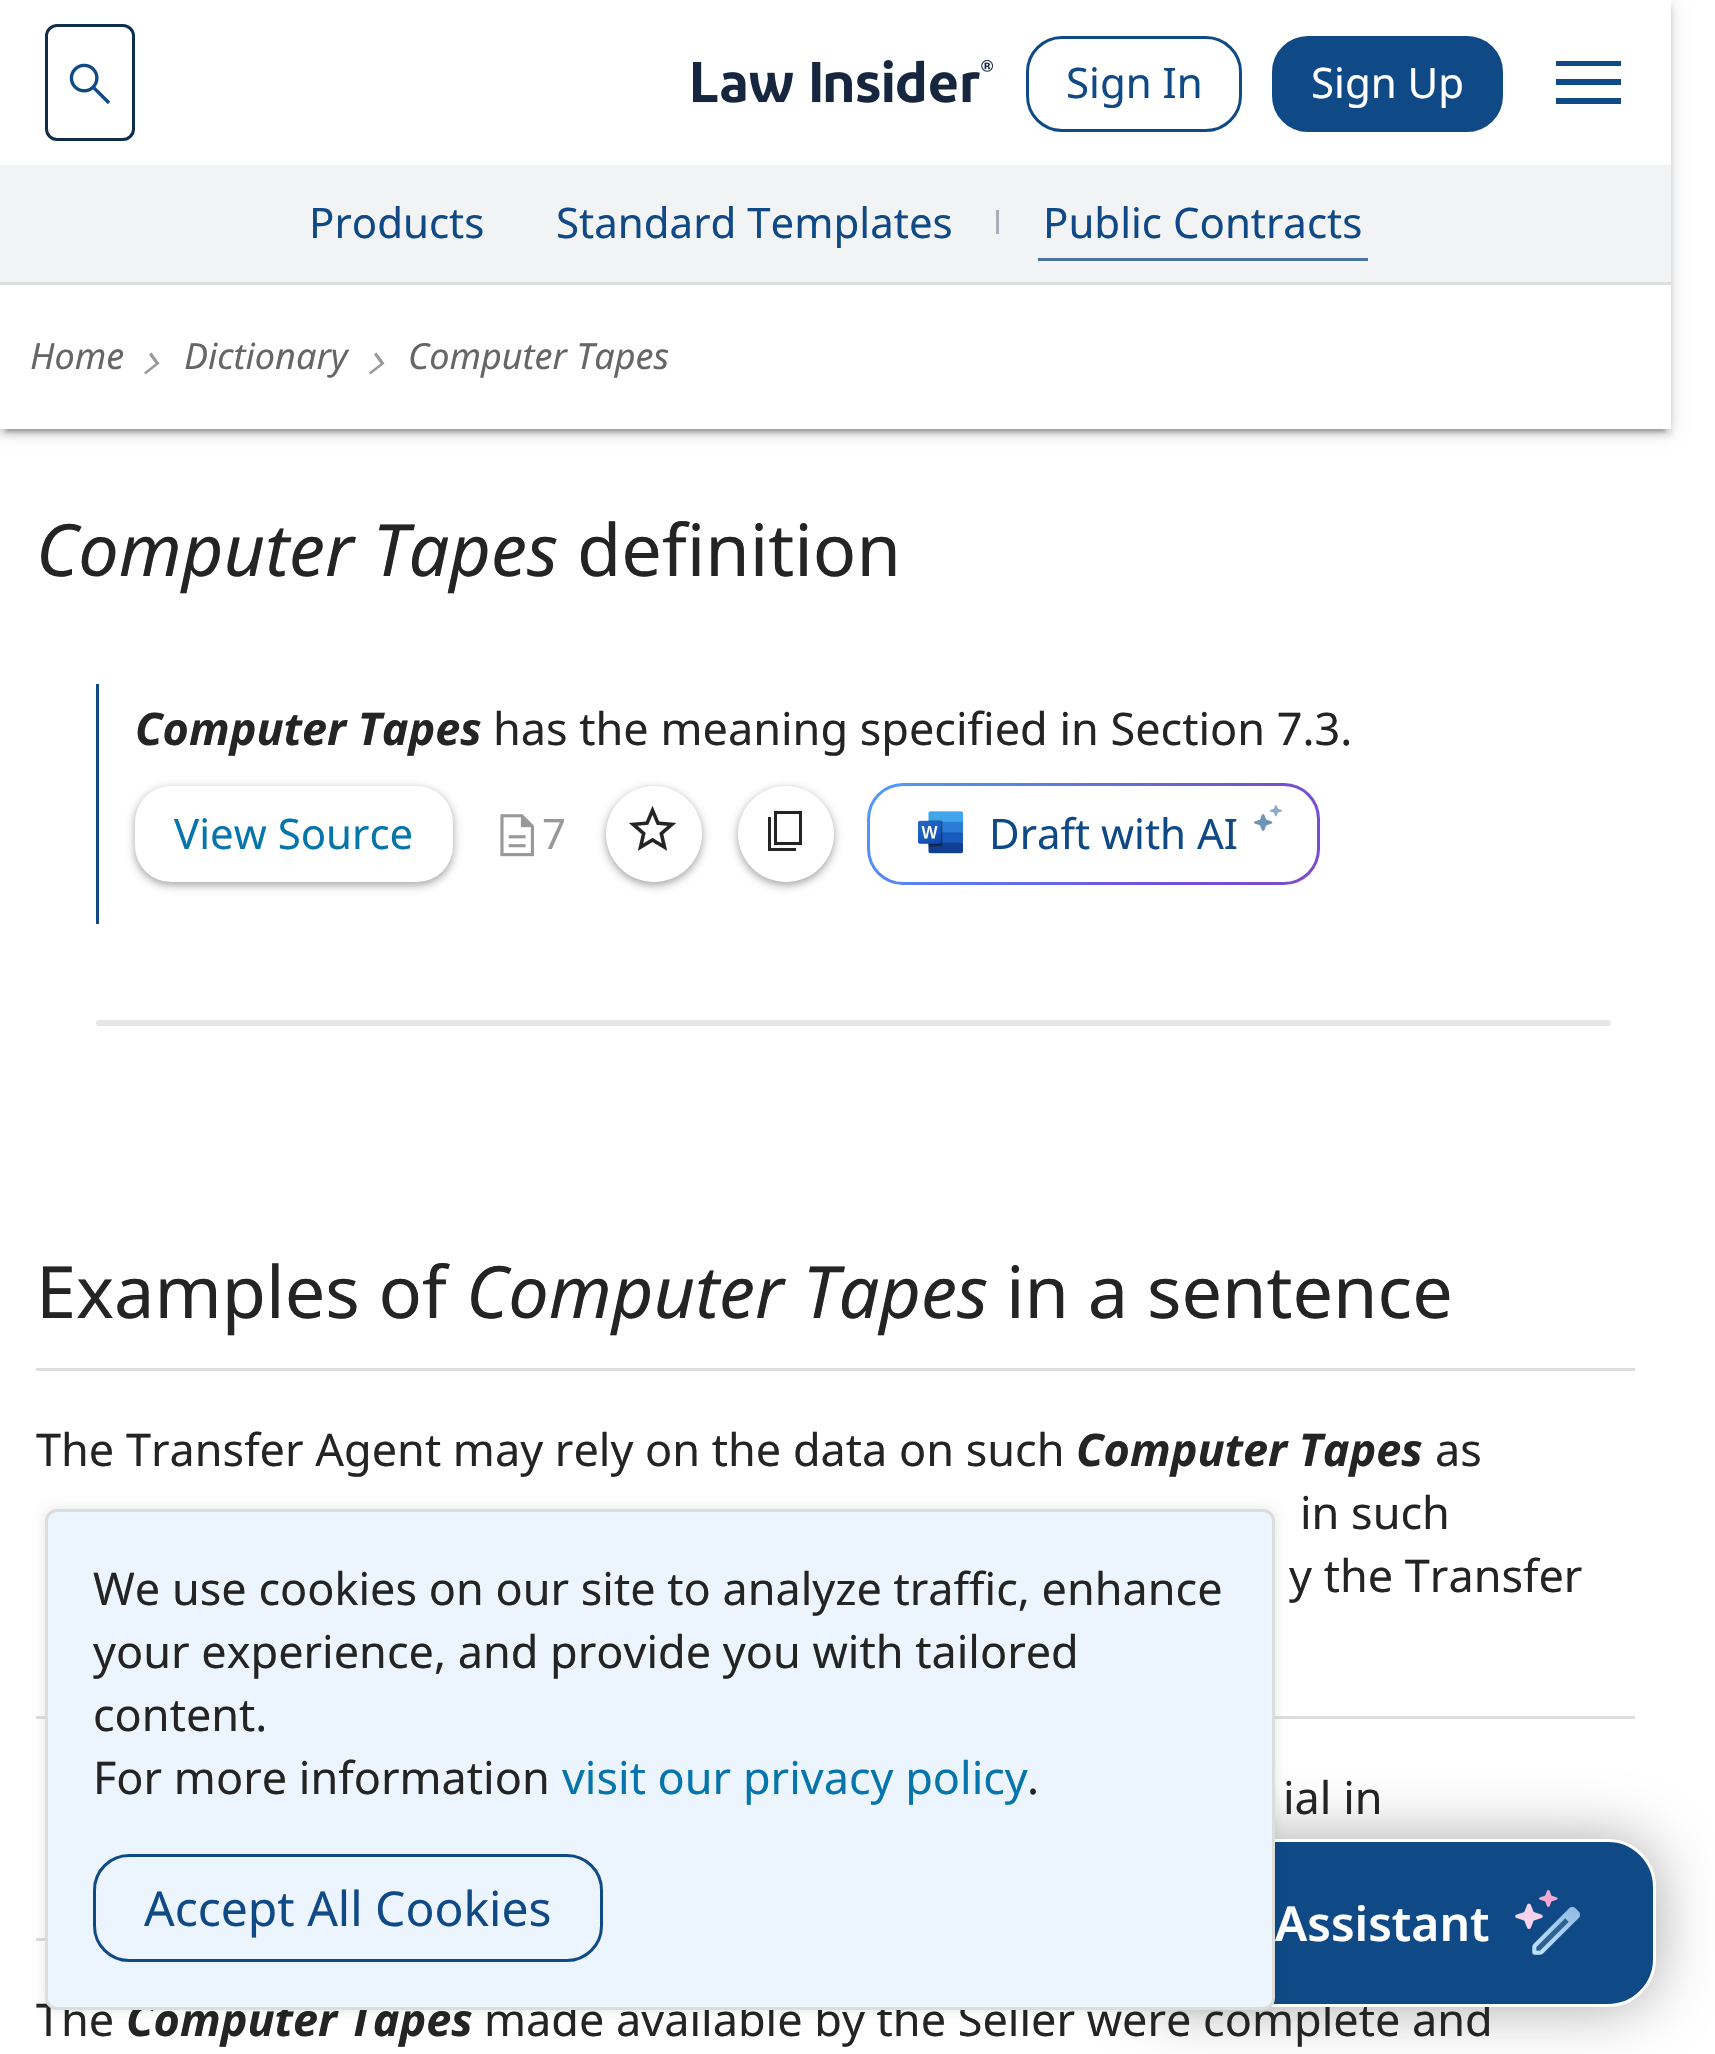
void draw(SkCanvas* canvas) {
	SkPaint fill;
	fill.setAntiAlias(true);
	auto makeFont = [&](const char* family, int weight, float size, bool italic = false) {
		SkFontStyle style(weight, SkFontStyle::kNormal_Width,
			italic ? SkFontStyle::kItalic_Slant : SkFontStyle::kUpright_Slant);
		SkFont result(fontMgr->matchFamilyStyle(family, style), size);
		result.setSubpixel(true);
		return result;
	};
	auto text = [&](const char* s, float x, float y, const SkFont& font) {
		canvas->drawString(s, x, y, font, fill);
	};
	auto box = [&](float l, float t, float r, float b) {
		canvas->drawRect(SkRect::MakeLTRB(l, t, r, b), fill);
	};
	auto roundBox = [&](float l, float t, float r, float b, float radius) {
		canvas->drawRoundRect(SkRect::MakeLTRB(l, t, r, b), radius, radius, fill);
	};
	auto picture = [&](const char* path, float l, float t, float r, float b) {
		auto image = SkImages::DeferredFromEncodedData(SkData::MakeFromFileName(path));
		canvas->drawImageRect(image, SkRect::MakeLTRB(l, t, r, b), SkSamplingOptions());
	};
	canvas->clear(0xFFFFFFFF);
	canvas->save();
	canvas->clipPath(SkPathBuilder(SkPathFillType::kEvenOdd).moveTo(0, 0).lineTo(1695, 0).lineTo(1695, 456).lineTo(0, 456).close().moveTo(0, 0).lineTo(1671, 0).lineTo(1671, 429).lineTo(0, 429).close().detach(), true);
	fill.setColor(0x1F000000);
	fill.setMaskFilter(SkMaskFilter::MakeBlur(kNormal_SkBlurStyle, 7.5f));
	canvas->drawRect(SkRect::MakeLTRB(0, 3, 1671, 432), fill);
	fill.setMaskFilter(nullptr);
	canvas->restore();
	canvas->save();
	canvas->clipPath(SkPathBuilder(SkPathFillType::kEvenOdd).moveTo(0, 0).lineTo(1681, 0).lineTo(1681, 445).lineTo(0, 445).close().moveTo(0, 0).lineTo(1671, 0).lineTo(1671, 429).lineTo(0, 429).close().detach(), true);
	fill.setColor(0x24000000);
	fill.setMaskFilter(SkMaskFilter::MakeBlur(kNormal_SkBlurStyle, 3));
	canvas->drawRect(SkRect::MakeLTRB(0, 6, 1671, 435), fill);
	fill.setMaskFilter(nullptr);
	canvas->restore();
	canvas->save();
	canvas->clipRect(SkRect::MakeLTRB(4, 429, 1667, 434));
	fill.setColor(0x33000000);
	fill.setMaskFilter(SkMaskFilter::MakeBlur(kNormal_SkBlurStyle, 1.5f));
	canvas->drawRect(SkRect::MakeLTRB(6, 15, 1665, 432), fill);
	fill.setMaskFilter(nullptr);
	canvas->restore();
	fill.setStyle(SkPaint::kStroke_Style);
	fill.setStrokeWidth(3);
	fill.setColor(0xFF0F2E4B);
	canvas->drawRoundRect(SkRect::MakeLTRB(46.5f, 25.5f, 133.5f, 139.5f), 10.5f, 10.5f, fill);
	picture("image0.png", 69, 63, 111, 105);
	picture("image1.png", 693, 60, 993, 103);
	fill.setColor(0xFF0F4A86);
	canvas->drawRoundRect(SkRect::MakeLTRB(1027.5f, 37.5f, 1240.5f, 130.5f), 34.5f, 34.5f, fill);
	fill.setStyle(SkPaint::kFill_Style);
	canvas->drawRoundRect(SkRect::MakeLTRB(1273.5f, 37.5f, 1501.5f, 130.5f), 34.5f, 34.5f, fill);
	fill.setStyle(SkPaint::kStroke_Style);
	canvas->drawRoundRect(SkRect::MakeLTRB(1273.5f, 37.5f, 1501.5f, 130.5f), 34.5f, 34.5f, fill);
	fill.setStyle(SkPaint::kFill_Style);
	canvas->drawPath(SkPathBuilder().moveTo(1556, 104).lineTo(1556, 98).lineTo(1621, 98).lineTo(1621, 104).close().moveTo(1556, 85).lineTo(1556, 79).lineTo(1621, 79).lineTo(1621, 85).close().moveTo(1556, 66).lineTo(1556, 61).lineTo(1621, 61).lineTo(1621, 66).close().detach(), fill);
	fill.setColor(0xFFF2F3F4);
	box(0, 165, 1671, 282);
	fill.setColor(0xFFA9AFB8);
	box(996, 210, 999, 234);
	fill.setColor(0xFF4874A2);
	box(1038, 258, 1368, 261);
	fill.setColor(0xFFDDDDDD);
	box(0, 282, 1671, 285);
	fill.setColor(0xFF999999);
	canvas->drawPath(SkPathBuilder().moveTo(155.5f, 363.5f).lineTo(149, 354.5f).lineTo(151.5f, 352.5f).lineTo(159.5f, 363.5f).lineTo(145.5f, 374.5f).lineTo(144, 372.5f).close().detach(), fill);
	canvas->drawPath(SkPathBuilder().moveTo(380.5f, 363.5f).lineTo(374, 354.5f).lineTo(376.5f, 352.5f).lineTo(384.5f, 363.5f).lineTo(370.5f, 374.5f).lineTo(369, 372.5f).close().detach(), fill);
	fill.setColor(0xFF0F4A86);
	box(96, 684, 99, 924);
	fill.setColor(0x263C4043);
	fill.setMaskFilter(SkMaskFilter::MakeBlur(kNormal_SkBlurStyle, 4.5f));
	canvas->drawRoundRect(SkRect::MakeLTRB(132, 786, 456, 888), 39, 39, fill);
	fill.setMaskFilter(nullptr);
	fill.setColor(0x4D3C4043);
	fill.setMaskFilter(SkMaskFilter::MakeBlur(kNormal_SkBlurStyle, 3));
	canvas->drawRoundRect(SkRect::MakeLTRB(135, 789, 453, 885), 36, 36, fill);
	fill.setMaskFilter(nullptr);
	fill.setColor(0xFFFFFFFF);
	roundBox(135, 786, 453, 882, 36);
	picture("image2.png", 500, 814, 534, 857);
	fill.setColor(0x263C4043);
	fill.setMaskFilter(SkMaskFilter::MakeBlur(kNormal_SkBlurStyle, 4.5f));
	canvas->drawRoundRect(SkRect::MakeLTRB(603, 786, 705, 888), 51, 51, fill);
	fill.setMaskFilter(nullptr);
	fill.setColor(0x4D3C4043);
	fill.setMaskFilter(SkMaskFilter::MakeBlur(kNormal_SkBlurStyle, 3));
	canvas->drawRoundRect(SkRect::MakeLTRB(606, 789, 702, 885), 48, 48, fill);
	fill.setMaskFilter(nullptr);
	fill.setColor(0xFFFFFFFF);
	canvas->drawCircle(654, 834, 48, fill);
	picture("image3.png", 629, 805, 676, 851);
	fill.setColor(0x263C4043);
	fill.setMaskFilter(SkMaskFilter::MakeBlur(kNormal_SkBlurStyle, 4.5f));
	canvas->drawRoundRect(SkRect::MakeLTRB(735, 786, 837, 888), 51, 51, fill);
	fill.setMaskFilter(nullptr);
	fill.setColor(0x4D3C4043);
	fill.setMaskFilter(SkMaskFilter::MakeBlur(kNormal_SkBlurStyle, 3));
	canvas->drawRoundRect(SkRect::MakeLTRB(738, 789, 834, 885), 48, 48, fill);
	fill.setMaskFilter(nullptr);
	fill.setColor(0xFFFFFFFF);
	canvas->drawCircle(786, 834, 48, fill);
	picture("image4.png", 768, 811, 802, 851);
	{
		const SkColor colors[] = {0xFF4D9DFF, 0xFF7251D7, 0xFF9E3CA8, 0xFFB01983, 0xFF9E3CA8, 0xFF7251D7, 0xFF4D9DFF, 0xFF7251D7, 0xFFB01983, 0xFF9E3CA8, 0xFF7251D7};
		const float stops[] = {0, 0.09f, 0.2f, 0.29f, 0.36f, 0.44f, 0.55f, 0.65f, 0.76f, 0.84f, 0.96f};
		const SkPoint ends[] = {{1569, 81}, {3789, 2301}};
		fill.setShader(SkGradientShader::MakeLinear(ends, colors, stops, 11, SkTileMode::kClamp));
		fill.setAlpha(255);
	}
	roundBox(867, 783, 1320, 885, 36);
	fill.setShader(nullptr);
	fill.setColor(0xFFFFFFFF);
	roundBox(870, 786, 1317, 882, 33);
	picture("image5.png", 918, 811, 963, 854);
	picture("image6.png", 1254, 805, 1282, 831);
	fill.setColor(0xFFE6E6E6);
	roundBox(96, 1020, 1611, 1026, 3);
	fill.setColor(0xFFDDDDDD);
	box(36, 1368, 1635, 1371);
	box(36, 1716, 1635, 1719);
	box(36, 1938, 45, 1941);
	fill.setColor(0x54000000);
	fill.setMaskFilter(SkMaskFilter::MakeBlur(kNormal_SkBlurStyle, 30));
	canvas->drawRoundRect(SkRect::MakeLTRB(1137, 1839, 1656, 2007), 48, 48, fill);
	fill.setMaskFilter(nullptr);
	auto font1 = makeFont("Noto Sans", 400, 42);
	fill.setColor(0xFF0F4A86);
	text("Sign In", 1066, 98, font1);
	fill.setColor(0xFFFFFFFF);
	text("Sign Up", 1311, 98, font1);
	fill.setColor(0xFF0F4A86);
	text("Products", 309, 238, font1);
	text("Standard Templates", 556, 238, font1);
	text("Public Contracts", 1043, 238, font1);
	auto font2 = makeFont("Noto Sans", 400, 36, true);
	fill.setColor(0xFF666666);
	text("Home", 30, 369, font2);
	text("Dictionary", 184, 369, font2);
	text("Computer Tapes", 408, 369, font2);
	auto font3 = makeFont("Noto Sans", 400, 72, true);
	fill.setColor(0xFF242424);
	text("Computer Tapes", 36, 576, font3);
	auto font4 = makeFont("Noto Sans", 400, 72);
	text("definition", 577, 576, font4);
	auto font5 = makeFont("Noto Sans", 700, 45, true);
	text("Computer Tapes", 135, 745, font5);
	auto font6 = makeFont("Noto Sans", 400, 45);
	text("has the meaning specified in Section 7.3.", 493, 745, font6);
	fill.setColor(0xFF0675AC);
	text("View Source", 174, 849, font1);
	fill.setColor(0xFF999999);
	text("7", 542, 849, font1);
	fill.setColor(0xFF0F4A86);
	text("Draft with AI", 989, 849, font1);
	fill.setColor(0xFF242424);
	text("Examples of", 36, 1318, font4);
	text("Computer Tapes", 466, 1318, font3);
	text("in a sentence", 1006, 1318, font4);
	text("The Transfer Agent may rely on the data on such", 36, 1466, font6);
	text("Computer Tapes", 1076, 1466, font5);
	text("as", 1435, 1466, font6);
	text("in such", 1300, 1529, font6);
	text("y the Transfer", 1289, 1592, font6);
	text("ial in", 1283, 1814, font6);
	text("The", 36, 2036, font6);
	text("Computer Tapes", 126, 2036, font5);
	text("made available by the Seller were complete and", 484, 2036, font6);
	fill.setColor(0xFF0F4A86);
	canvas->drawRoundRect(SkRect::MakeLTRB(1138.5f, 1840.5f, 1654.5f, 2005.5f), 46.5f, 46.5f, fill);
	fill.setStyle(SkPaint::kStroke_Style);
	fill.setColor(0xFFFFFFFF);
	canvas->drawRoundRect(SkRect::MakeLTRB(1138.5f, 1840.5f, 1654.5f, 2005.5f), 46.5f, 46.5f, fill);
	fill.setStyle(SkPaint::kFill_Style);
	fill.setColor(0x1A000000);
	fill.setMaskFilter(SkMaskFilter::MakeBlur(kNormal_SkBlurStyle, 6));
	canvas->drawRoundRect(SkRect::MakeLTRB(45, 1509, 1275, 2010), 12, 12, fill);
	fill.setMaskFilter(nullptr);
	auto font7 = makeFont("Noto Sans", 600, 48);
	fill.setColor(0xFFFFFFFF);
	text("Assistant", 1275, 1941, font7);
	fill.setColor(0xFFECF4FD);
	canvas->drawRoundRect(SkRect::MakeLTRB(46.5f, 1510.5f, 1273.5f, 2008.5f), 10.5f, 10.5f, fill);
	fill.setStyle(SkPaint::kStroke_Style);
	fill.setColor(0xFFDDDDDD);
	canvas->drawRoundRect(SkRect::MakeLTRB(46.5f, 1510.5f, 1273.5f, 2008.5f), 10.5f, 10.5f, fill);
	fill.setColor(0xFF0F4A86);
	canvas->drawRoundRect(SkRect::MakeLTRB(94.5f, 1855.5f, 601.5f, 1960.5f), 34.5f, 34.5f, fill);
	auto font8 = makeFont("Noto Sans", 400, 48);
	fill.setStyle(SkPaint::kFill_Style);
	text("Accept All Cookies", 144, 1926, font8);
	fill.setColor(0xFF242424);
	text(".", 1027, 1794, font6);
	fill.setColor(0xFF0675AC);
	text("visit our privacy policy", 562, 1794, font6);
	fill.setColor(0xFF242424);
	text("For more information", 93, 1794, font6);
	text("content.", 93, 1731, font6);
	text("your experience, and provide you with tailored", 93, 1668, font6);
	text("We use cookies on our site to analyze traffic, enhance", 93, 1605, font6);
	picture("image7.png", 1515, 1890, 1580, 1955);
}
